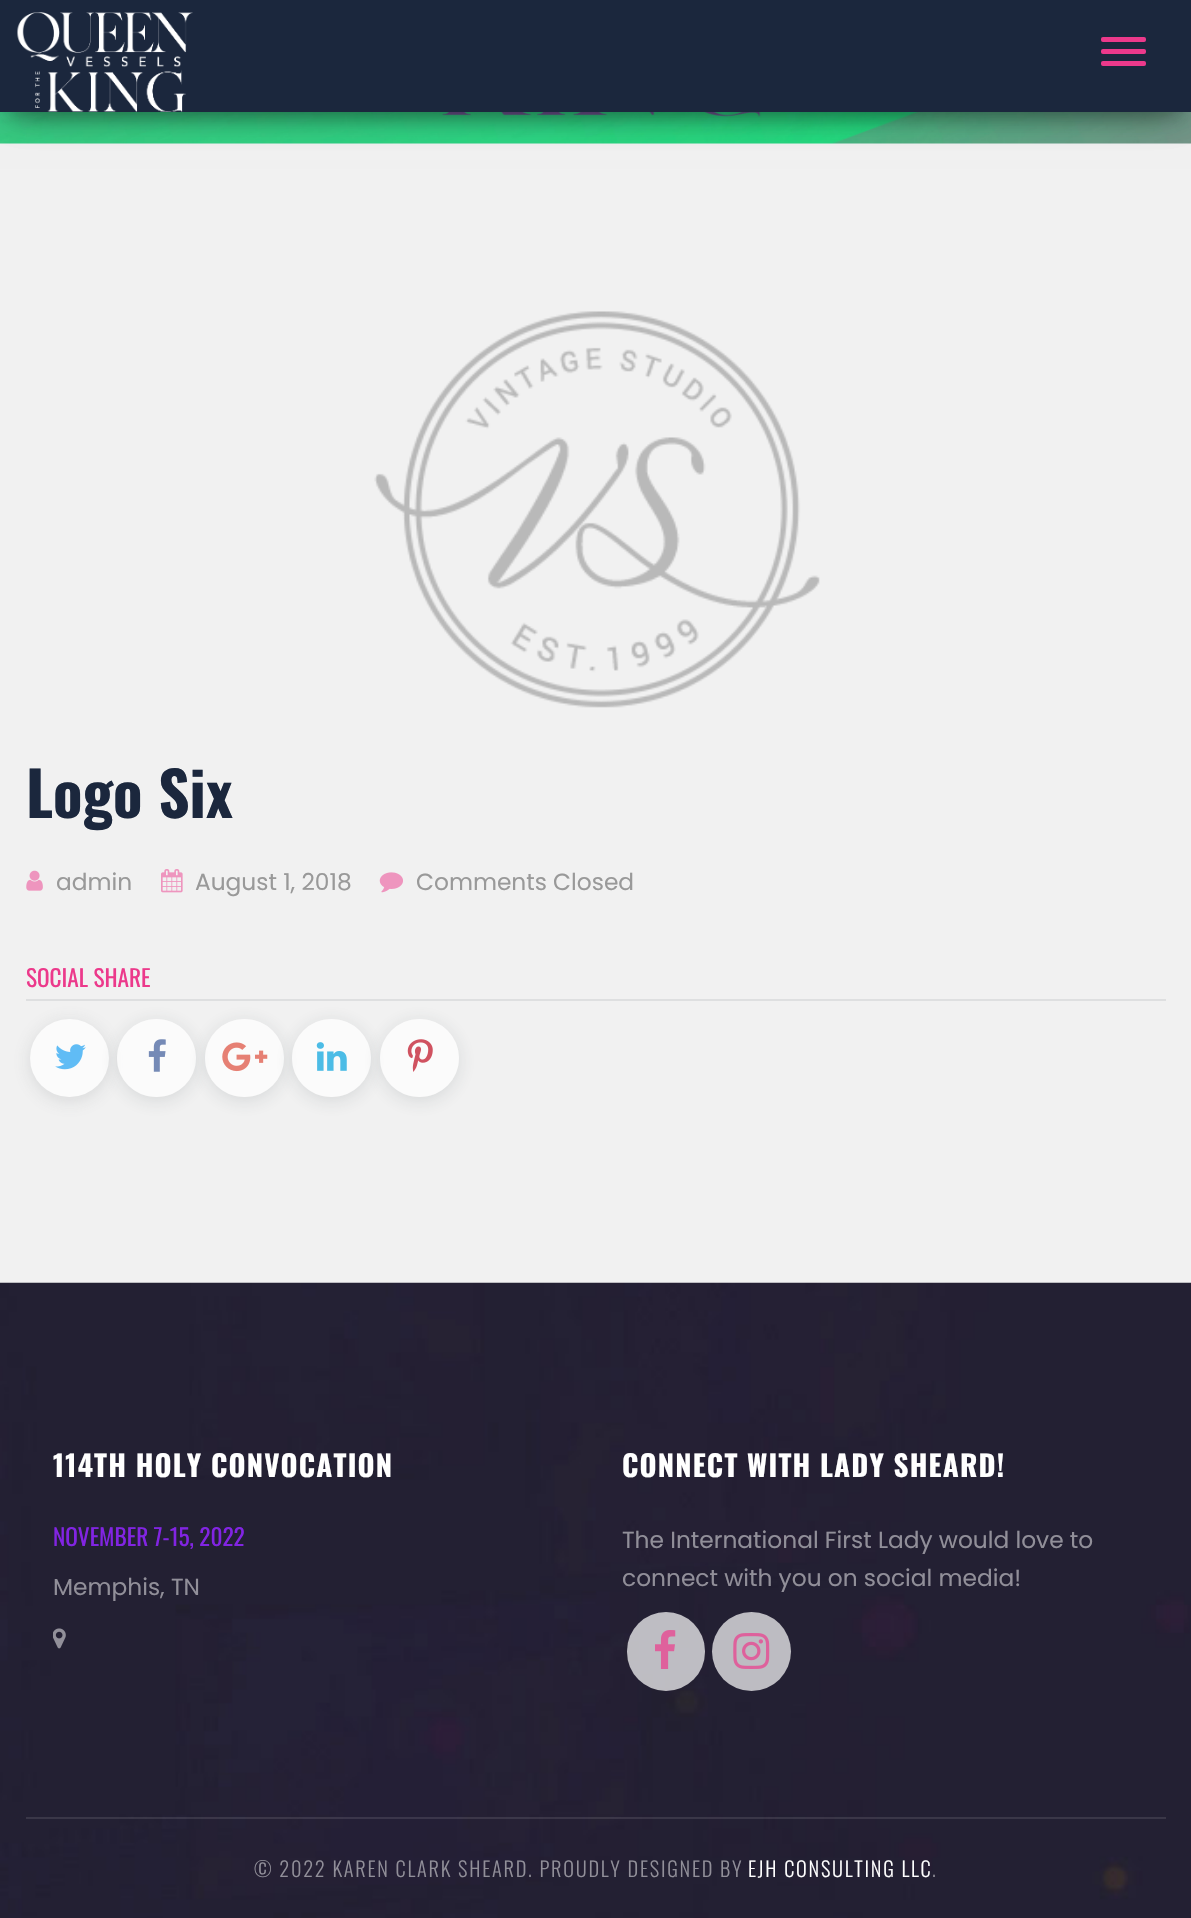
void draw(SkCanvas* canvas) {
	SkPaint fill;
	fill.setAntiAlias(true);
	auto makeFont = [&](const char* family, int weight, float size, bool italic = false) {
		SkFontStyle style(weight, SkFontStyle::kNormal_Width,
			italic ? SkFontStyle::kItalic_Slant : SkFontStyle::kUpright_Slant);
		SkFont result(fontMgr->matchFamilyStyle(family, style), size);
		result.setSubpixel(true);
		return result;
	};
	auto text = [&](const char* s, float x, float y, const SkFont& font) {
		canvas->drawString(s, x, y, font, fill);
	};
	auto spacedText = [&](const char* s, float x, float y, const SkFont& font, const SkPaint& ink, float letter, float word) {
		std::vector<SkGlyphID> glyphs(font.countText(s, strlen(s), SkTextEncoding::kUTF8));
		std::vector<float> xs(glyphs.size());
		font.textToGlyphs(s, strlen(s), SkTextEncoding::kUTF8, glyphs);
		font.getXPos(glyphs, xs, x);
		float extra = 0;
		for (size_t i = 0; i < glyphs.size(); i++) {
			xs[i] += extra;
			extra += letter + word * (glyphs[i] == font.unicharToGlyph(' '));
		}
		canvas->drawTextBlob(SkTextBlob::MakeFromPosHGlyphs(glyphs, xs, y, font), 0, 0, ink);
	};
	auto box = [&](float l, float t, float r, float b) {
		canvas->drawRect(SkRect::MakeLTRB(l, t, r, b), fill);
	};
	auto roundBox = [&](float l, float t, float r, float b, float radius) {
		canvas->drawRoundRect(SkRect::MakeLTRB(l, t, r, b), radius, radius, fill);
	};
	auto picture = [&](const char* path, float l, float t, float r, float b) {
		auto image = SkImages::DeferredFromEncodedData(SkData::MakeFromFileName(path));
		canvas->drawImageRect(image, SkRect::MakeLTRB(l, t, r, b), SkSamplingOptions());
	};
	canvas->clear(0xFFF1F1F1);
	picture("image1.png", 0, 112, 1191, 144);
	fill.setColor(0x33000000);
	fill.setMaskFilter(SkMaskFilter::MakeBlur(kNormal_SkBlurStyle, 9));
	canvas->drawRect(SkRect::MakeLTRB(9, 23, 1183, 117), fill);
	fill.setMaskFilter(nullptr);
	fill.setColor(0x1F000000);
	fill.setMaskFilter(SkMaskFilter::MakeBlur(kNormal_SkBlurStyle, 17.5f));
	canvas->drawRect(SkRect::MakeLTRB(0, 5, 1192, 117), fill);
	fill.setMaskFilter(nullptr);
	fill.setColor(0x6B000000);
	fill.setMaskFilter(SkMaskFilter::MakeBlur(kNormal_SkBlurStyle, 17.5f));
	canvas->drawRect(SkRect::MakeLTRB(21, 39, 1171, 109), fill);
	fill.setMaskFilter(nullptr);
	fill.setColor(0xFF1B273D);
	box(0, 0, 1191, 112);
	picture("image0.png", 17, 12, 193, 112);
	fill.setColor(0xFFEC398B);
	roundBox(1101, 37, 1146, 42, 2);
	roundBox(1101, 49, 1146, 54, 2);
	roundBox(1101, 61, 1146, 66, 2);
	picture("image2.png", 374, 311, 820, 708);
	picture("image3.png", 26, 870, 43, 891);
	picture("image4.png", 161, 869, 183, 893);
	picture("image5.png", 379, 872, 403, 893);
	fill.setColor(0xFFDEDFE0);
	box(26, 999, 1166, 1001);
	fill.setColor(0x336D737A);
	fill.setMaskFilter(SkMaskFilter::MakeBlur(kNormal_SkBlurStyle, 9));
	canvas->drawRoundRect(SkRect::MakeLTRB(30, 1022, 109, 1101), 39.5f, 39.5f, fill);
	fill.setMaskFilter(nullptr);
	fill.setColor(0xFFFBFBFB);
	roundBox(30, 1019, 109, 1097, 39);
	picture("image6.png", 55, 1044, 86, 1070);
	canvas->save();
	canvas->clipPath(SkPathBuilder(SkPathFillType::kEvenOdd).moveTo(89, 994).lineTo(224, 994).lineTo(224, 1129).lineTo(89, 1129).close().moveTo(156, 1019).lineTo(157, 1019).cubicTo(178.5f, 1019, 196, 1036.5f, 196, 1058).cubicTo(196, 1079.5f, 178.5f, 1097, 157, 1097).lineTo(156, 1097).cubicTo(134.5f, 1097, 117, 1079.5f, 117, 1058).cubicTo(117, 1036.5f, 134.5f, 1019, 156, 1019).close().detach(), true);
	fill.setColor(0x24343D47);
	fill.setMaskFilter(SkMaskFilter::MakeBlur(kNormal_SkBlurStyle, 9));
	canvas->drawRoundRect(SkRect::MakeLTRB(117, 1022, 196, 1101), 39.5f, 39.5f, fill);
	fill.setMaskFilter(nullptr);
	canvas->restore();
	fill.setColor(0xB3FFFFFF);
	roundBox(117, 1019, 196, 1097, 39);
	picture("image7.png", 148, 1039, 166, 1072);
	canvas->save();
	canvas->clipPath(SkPathBuilder(SkPathFillType::kEvenOdd).moveTo(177, 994).lineTo(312, 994).lineTo(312, 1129).lineTo(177, 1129).close().moveTo(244, 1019).lineTo(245, 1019).cubicTo(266.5f, 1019, 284, 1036.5f, 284, 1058).cubicTo(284, 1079.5f, 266.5f, 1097, 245, 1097).lineTo(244, 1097).cubicTo(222.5f, 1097, 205, 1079.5f, 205, 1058).cubicTo(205, 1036.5f, 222.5f, 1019, 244, 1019).close().detach(), true);
	fill.setColor(0x24343D47);
	fill.setMaskFilter(SkMaskFilter::MakeBlur(kNormal_SkBlurStyle, 9));
	canvas->drawRoundRect(SkRect::MakeLTRB(205, 1022, 284, 1101), 39.5f, 39.5f, fill);
	fill.setMaskFilter(nullptr);
	canvas->restore();
	fill.setColor(0xB3FFFFFF);
	roundBox(205, 1019, 284, 1097, 39);
	picture("image8.png", 222, 1042, 268, 1072);
	canvas->save();
	canvas->clipPath(SkPathBuilder(SkPathFillType::kEvenOdd).moveTo(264, 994).lineTo(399, 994).lineTo(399, 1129).lineTo(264, 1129).close().moveTo(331, 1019).lineTo(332, 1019).cubicTo(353.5f, 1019, 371, 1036.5f, 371, 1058).cubicTo(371, 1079.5f, 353.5f, 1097, 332, 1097).lineTo(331, 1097).cubicTo(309.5f, 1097, 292, 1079.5f, 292, 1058).cubicTo(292, 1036.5f, 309.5f, 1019, 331, 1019).close().detach(), true);
	fill.setColor(0x24343D47);
	fill.setMaskFilter(SkMaskFilter::MakeBlur(kNormal_SkBlurStyle, 9));
	canvas->drawRoundRect(SkRect::MakeLTRB(292, 1022, 371, 1101), 39.5f, 39.5f, fill);
	fill.setMaskFilter(nullptr);
	canvas->restore();
	fill.setColor(0xB3FFFFFF);
	roundBox(292, 1019, 371, 1097, 39);
	picture("image9.png", 316, 1042, 347, 1071);
	canvas->save();
	canvas->clipPath(SkPathBuilder(SkPathFillType::kEvenOdd).moveTo(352, 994).lineTo(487, 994).lineTo(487, 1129).lineTo(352, 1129).close().moveTo(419, 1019).lineTo(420, 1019).cubicTo(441.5f, 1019, 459, 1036.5f, 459, 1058).cubicTo(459, 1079.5f, 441.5f, 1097, 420, 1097).lineTo(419, 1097).cubicTo(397.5f, 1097, 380, 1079.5f, 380, 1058).cubicTo(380, 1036.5f, 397.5f, 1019, 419, 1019).close().detach(), true);
	fill.setColor(0x24343D47);
	fill.setMaskFilter(SkMaskFilter::MakeBlur(kNormal_SkBlurStyle, 9));
	canvas->drawRoundRect(SkRect::MakeLTRB(380, 1022, 459, 1101), 39.5f, 39.5f, fill);
	fill.setMaskFilter(nullptr);
	canvas->restore();
	fill.setColor(0xB3FFFFFF);
	roundBox(380, 1019, 459, 1097, 39);
	picture("image10.png", 407, 1039, 433, 1072);
	picture("image11.png", 0, 1282, 1191, 1918);
	picture("image12.png", 53, 1628, 66, 1649);
	roundBox(627, 1612, 705, 1691, 39);
	picture("image13.png", 655, 1630, 676, 1669);
	fill.setColor(0xFFBDBCC2);
	canvas->drawCircle(751.5f, 1651.5f, 39.5f, fill);
	picture("image14.png", 733, 1633, 770, 1669);
	fill.setColor(0x1AFFFFFF);
	box(26, 1817, 1166, 1819);
	auto font1 = makeFont("Oswald", 700, 61);
	fill.setColor(0xFF1B273D);
	text("Logo Six", 26, 818, font1);
	auto font2 = makeFont("Poppins", 400, 23.3f);
	fill.setColor(0xFF999999);
	text("admin", 56, 890, font2);
	text("August 1, 2018", 195, 890, font2);
	text("Comments Closed", 416, 890, font2);
	auto font3 = makeFont("Oswald", 400, 23.3f);
	fill.setColor(0xFFEC398B);
	text("SOCIAL SHARE", 26, 987, font3);
	auto font4 = makeFont("Oswald", 700, 29.1f);
	fill.setColor(0xFFFFFFFF);
	spacedText("114TH HOLY CONVOCATION", 53, 1477, font4, fill, 1.15f, 0);
	fill.setColor(0xFF8224E3);
	text("NOVEMBER 7-15, 2022", 53, 1546, font3);
	fill.setColor(0xFF918F99);
	text("Memphis, TN", 53, 1595, font2);
	fill.setColor(0xFFFFFFFF);
	spacedText("CONNECT WITH LADY SHEARD!", 622, 1477, font4, fill, 1.15f, 0);
	fill.setColor(0xFF918F99);
	text("The International First Lady would love to", 622, 1548, font2);
	text("connect with you on social media!", 622, 1586, font2);
	auto font5 = makeFont("Oswald", 300, 20.4f);
	spacedText("© 2022 KAREN CLARK SHEARD. PROUDLY DESIGNED BY", 254, 1877, font5, fill, 1.75f, 0);
	fill.setColor(0xFFFFFFFF);
	spacedText("EJH CONSULTING LLC", 748, 1877, font5, fill, 1.75f, 0);
	fill.setColor(0xFF918F99);
	spacedText(".", 932, 1877, font5, fill, 1.75f, 0);
}
